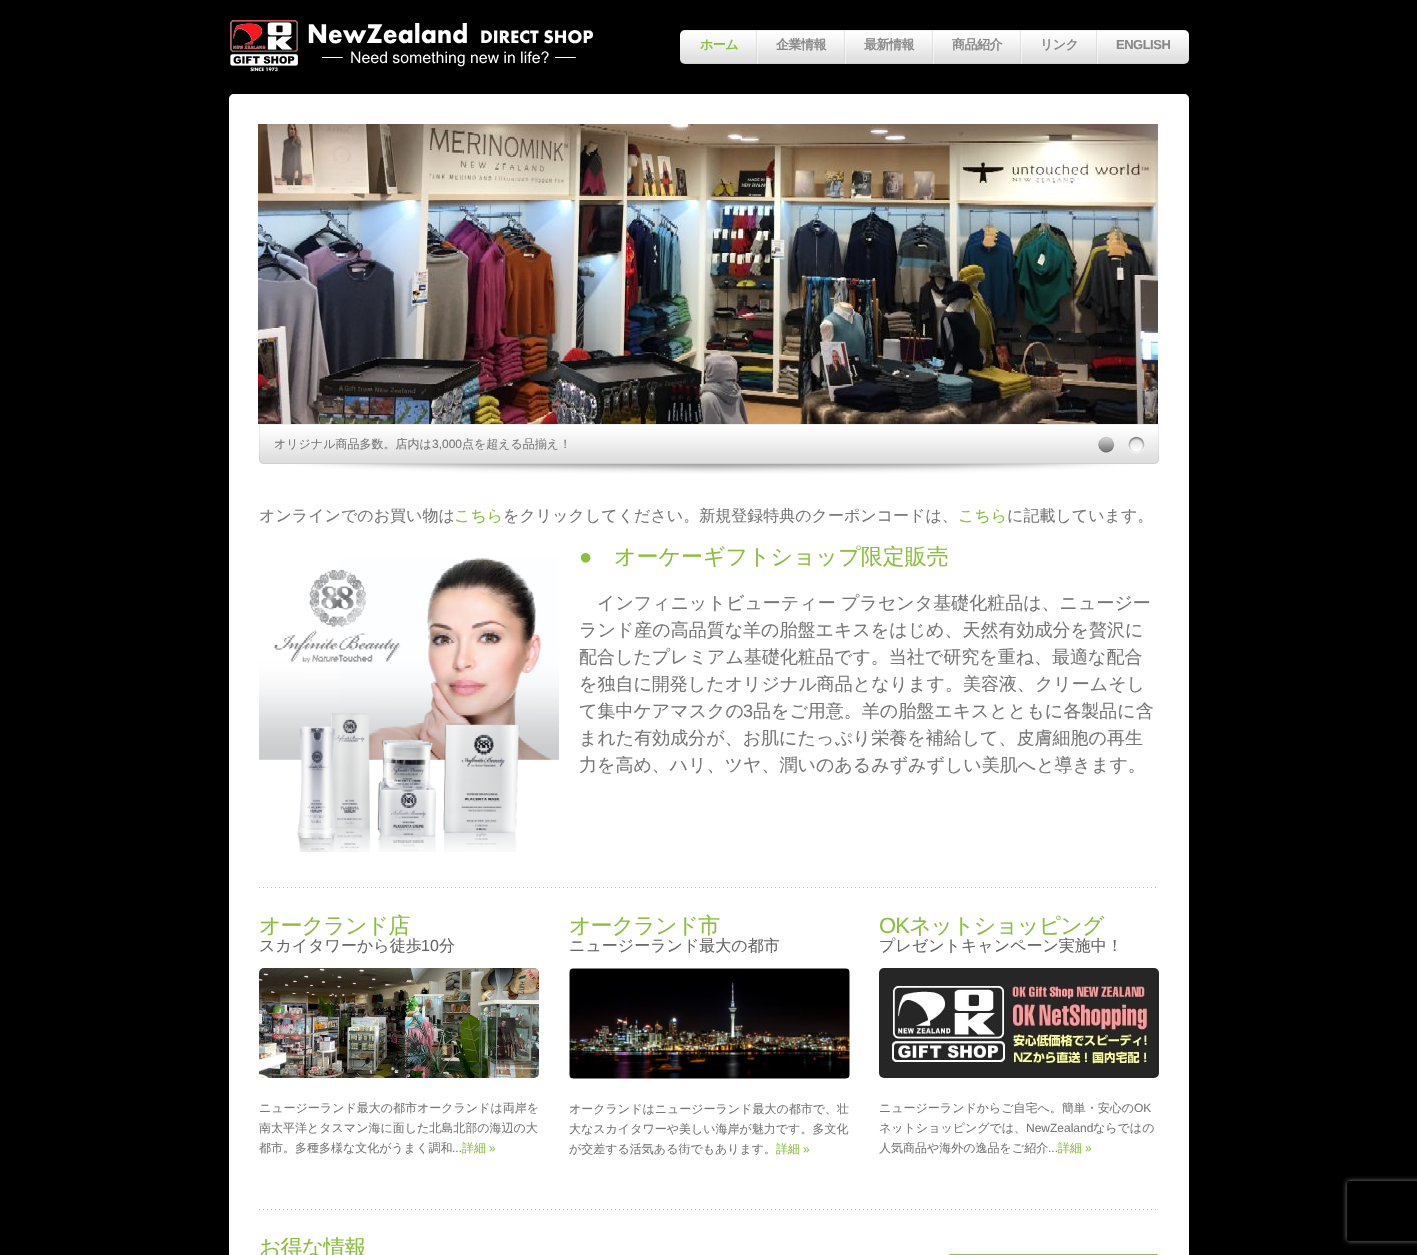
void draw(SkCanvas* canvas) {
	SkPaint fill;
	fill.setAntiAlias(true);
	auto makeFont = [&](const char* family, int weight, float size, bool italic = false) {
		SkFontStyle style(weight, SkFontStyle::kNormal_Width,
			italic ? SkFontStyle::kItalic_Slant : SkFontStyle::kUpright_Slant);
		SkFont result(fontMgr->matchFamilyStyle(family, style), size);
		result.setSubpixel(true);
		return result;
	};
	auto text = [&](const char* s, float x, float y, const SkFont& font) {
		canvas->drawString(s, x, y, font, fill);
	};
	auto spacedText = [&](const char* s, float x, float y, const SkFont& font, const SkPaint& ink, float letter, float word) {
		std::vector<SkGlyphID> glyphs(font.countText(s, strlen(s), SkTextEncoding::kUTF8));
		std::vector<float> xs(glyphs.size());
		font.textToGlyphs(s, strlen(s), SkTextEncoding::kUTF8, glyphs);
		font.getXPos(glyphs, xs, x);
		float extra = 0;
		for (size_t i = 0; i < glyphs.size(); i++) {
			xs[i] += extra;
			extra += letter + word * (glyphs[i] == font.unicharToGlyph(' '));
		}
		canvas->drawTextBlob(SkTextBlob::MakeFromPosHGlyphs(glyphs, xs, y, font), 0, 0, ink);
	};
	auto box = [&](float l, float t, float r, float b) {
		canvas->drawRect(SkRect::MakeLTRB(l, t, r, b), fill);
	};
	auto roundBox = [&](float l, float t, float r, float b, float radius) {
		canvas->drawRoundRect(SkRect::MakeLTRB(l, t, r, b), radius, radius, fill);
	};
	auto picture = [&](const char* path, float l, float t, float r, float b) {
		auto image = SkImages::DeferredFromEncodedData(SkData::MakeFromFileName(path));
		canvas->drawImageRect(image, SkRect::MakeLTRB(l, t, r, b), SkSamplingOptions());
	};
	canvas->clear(0xFF000000);
	picture("image0.png", 230, 20, 593, 72);
	picture("image1.png", 680, 30, 1189, 64);
	picture("image2.png", 756, 30, 758, 64);
	picture("image2.png", 844, 30, 846, 64);
	picture("image2.png", 932, 30, 934, 64);
	picture("image2.png", 1020, 30, 1022, 64);
	picture("image2.png", 1096, 30, 1098, 64);
	fill.setColor(0xFFFFFFFF);
	canvas->drawPath(SkPathBuilder().moveTo(234, 94).lineTo(1184, 94).cubicTo(1187, 94, 1189, 96, 1189, 99).lineTo(1189, 424).lineTo(229, 424).lineTo(229, 99).cubicTo(229, 96, 231, 94, 234, 94).close().detach(), fill);
	picture("image3.png", 258, 124, 1158, 424);
	box(229, 424, 1189, 1255);
	picture("image6.png", 259, 424, 1159, 474);
	picture("image4.png", 1098, 436, 1115, 453);
	picture("image5.png", 1128, 436, 1145, 454);
	picture("image7.png", 259, 558, 559, 852);
	picture("image8.png", 259, 887, 1156, 888);
	picture("image9.png", 259, 968, 539, 1078);
	picture("image10.png", 569, 968, 850, 1079);
	picture("image11.png", 879, 968, 1159, 1078);
	picture("image8.png", 259, 1209, 1156, 1210);
	fill.setColor(0xFF89BF3D);
	roundBox(948, 1254, 1159, 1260, 5);
	canvas->save();
	canvas->clipPath(SkPathBuilder(SkPathFillType::kEvenOdd).moveTo(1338, 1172).lineTo(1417, 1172).lineTo(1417, 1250).lineTo(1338, 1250).close().moveTo(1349, 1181).lineTo(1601, 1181).cubicTo(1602, 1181, 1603, 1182, 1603, 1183).lineTo(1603, 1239).cubicTo(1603, 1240, 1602, 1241, 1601, 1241).lineTo(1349, 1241).cubicTo(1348, 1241, 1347, 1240, 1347, 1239).lineTo(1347, 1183).cubicTo(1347, 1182, 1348, 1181, 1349, 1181).close().detach(), true);
	fill.setColor(0xFF808080);
	fill.setMaskFilter(SkMaskFilter::MakeBlur(kNormal_SkBlurStyle, 2.5f));
	canvas->drawRoundRect(SkRect::MakeLTRB(1347, 1181, 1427, 1241), 2, 2, fill);
	fill.setMaskFilter(nullptr);
	canvas->restore();
	auto font1 = makeFont("WenQuanYi Zen Hei", 700, 13);
	fill.setColor(0xFF89BF3D);
	spacedText("ホーム", 700, 49, font1, fill, -0.5f, 0);
	fill.setColor(0xFF888888);
	spacedText("企業情報", 776, 49, font1, fill, -0.5f, 0);
	spacedText("最新情報", 864, 49, font1, fill, -0.5f, 0);
	spacedText("商品紹介", 952, 49, font1, fill, -0.5f, 0);
	spacedText("リンク", 1040, 49, font1, fill, -0.5f, 0);
	auto font2 = makeFont("Liberation Sans", 700, 13);
	spacedText("ENGLISH", 1116, 49, font2, fill, -0.5f, 0);
	auto font3 = makeFont("WenQuanYi Zen Hei", 500, 12);
	fill.setColor(0xFF777777);
	text("オリジナル商品多数。店内は", 274, 448, font3);
	auto font4 = makeFont("Liberation Sans", 400, 12);
	text("3,000", 432, 448, font4);
	text("点を超える品揃え！", 462, 448, font3);
	auto font5 = makeFont("WenQuanYi Zen Hei", 500, 16);
	text("オンラインでのお買い物は", 259, 521, font5);
	fill.setColor(0xFF89BF3D);
	text("こちら", 454, 521, font5);
	fill.setColor(0xFF777777);
	text("をクリックしてください。新規登録特典のクーポンコードは、", 503, 521, font5);
	fill.setColor(0xFF89BF3D);
	text("こちら", 958, 521, font5);
	fill.setColor(0xFF777777);
	text("に記載しています。", 1007, 521, font5);
	auto font6 = makeFont("Liberation Sans", 400, 22);
	fill.setColor(0xFF89BF3D);
	text("●", 579, 564, font6);
	auto font7 = makeFont("WenQuanYi Zen Hei", 500, 22);
	text("オーケーギフトショップ限定販売", 614, 564, font7);
	auto font8 = makeFont("WenQuanYi Zen Hei", 500, 18);
	fill.setColor(0xFF777777);
	text("インフィニットビューティー プラセンタ基礎化粧品は、ニュージー", 597, 609, font8);
	text("ランド産の高品質な羊の胎盤エキスをはじめ、天然有効成分を贅沢に", 579, 636, font8);
	text("配合したプレミアム基礎化粧品です。当社で研究を重ね、最適な配合", 579, 663, font8);
	text("を独自に開発したオリジナル商品となります。美容液、クリームそし", 579, 690, font8);
	text("て集中ケアマスクの", 579, 717, font8);
	auto font9 = makeFont("Liberation Sans", 400, 18);
	text("3", 743, 717, font9);
	text("品をご用意。羊の胎盤エキスとともに各製品に含", 753, 717, font8);
	text("まれた有効成分が、お肌にたっぷり栄養を補給して、皮膚細胞の再生", 579, 744, font8);
	text("力を高め、ハリ、ツヤ、潤いのあるみずみずしい美肌へと導きます。", 579, 771, font8);
	fill.setColor(0xFF89BF3D);
	spacedText("オークランド店", 259, 933, font7, fill, -0.9f, 0);
	fill.setColor(0xFF666666);
	text("スカイタワーから徒歩", 259, 951, font5);
	auto font10 = makeFont("Liberation Sans", 400, 16);
	text("10", 421, 951, font10);
	text("分", 439, 951, font5);
	fill.setColor(0xFF777777);
	text("ニュージーランド最大の都市オークランドは両岸を", 259, 1112, font3);
	text("南太平洋とタスマン海に面した北島北部の海辺の大", 259, 1132, font3);
	text("都市。多種多様な文化がうまく調和", 259, 1152, font3);
	text("...", 452, 1152, font4);
	fill.setColor(0xFF89BF3D);
	text("詳細", 462, 1152, font3);
	text("»", 489, 1152, font4);
	spacedText("オークランド市", 569, 933, font7, fill, -0.9f, 0);
	fill.setColor(0xFF666666);
	text("ニュージーランド最大の都市", 569, 951, font5);
	fill.setColor(0xFF777777);
	text("オークランドはニュージーランド最大の都市で、壮", 569, 1113, font3);
	text("大なスカイタワーや美しい海岸が魅力です。多文化", 569, 1133, font3);
	text("が交差する活気ある街でもあります。", 569, 1153, font3);
	fill.setColor(0xFF89BF3D);
	text("詳細", 776, 1153, font3);
	text("»", 803, 1153, font4);
	spacedText("OK", 879, 933, font6, fill, -0.9f, 0);
	spacedText("ネットショッピング", 909, 933, font7, fill, -0.9f, 0);
	fill.setColor(0xFF666666);
	text("プレゼントキャンペーン実施中！", 879, 951, font5);
	fill.setColor(0xFF777777);
	text("ニュージーランドからご自宅へ。簡単・安心の", 879, 1112, font3);
	text("OK", 1134, 1112, font4);
	text("ネットショッピングでは、", 879, 1132, font3);
	text("NewZealand", 1026, 1132, font4);
	text("ならではの", 1093, 1132, font3);
	text("人気商品や海外の逸品をご紹介", 879, 1152, font3);
	text("...", 1048, 1152, font4);
	fill.setColor(0xFF89BF3D);
	text("詳細", 1058, 1152, font3);
	text("»", 1085, 1152, font4);
	spacedText("お得な情報", 259, 1255, font7, fill, -0.9f, 0);
}
